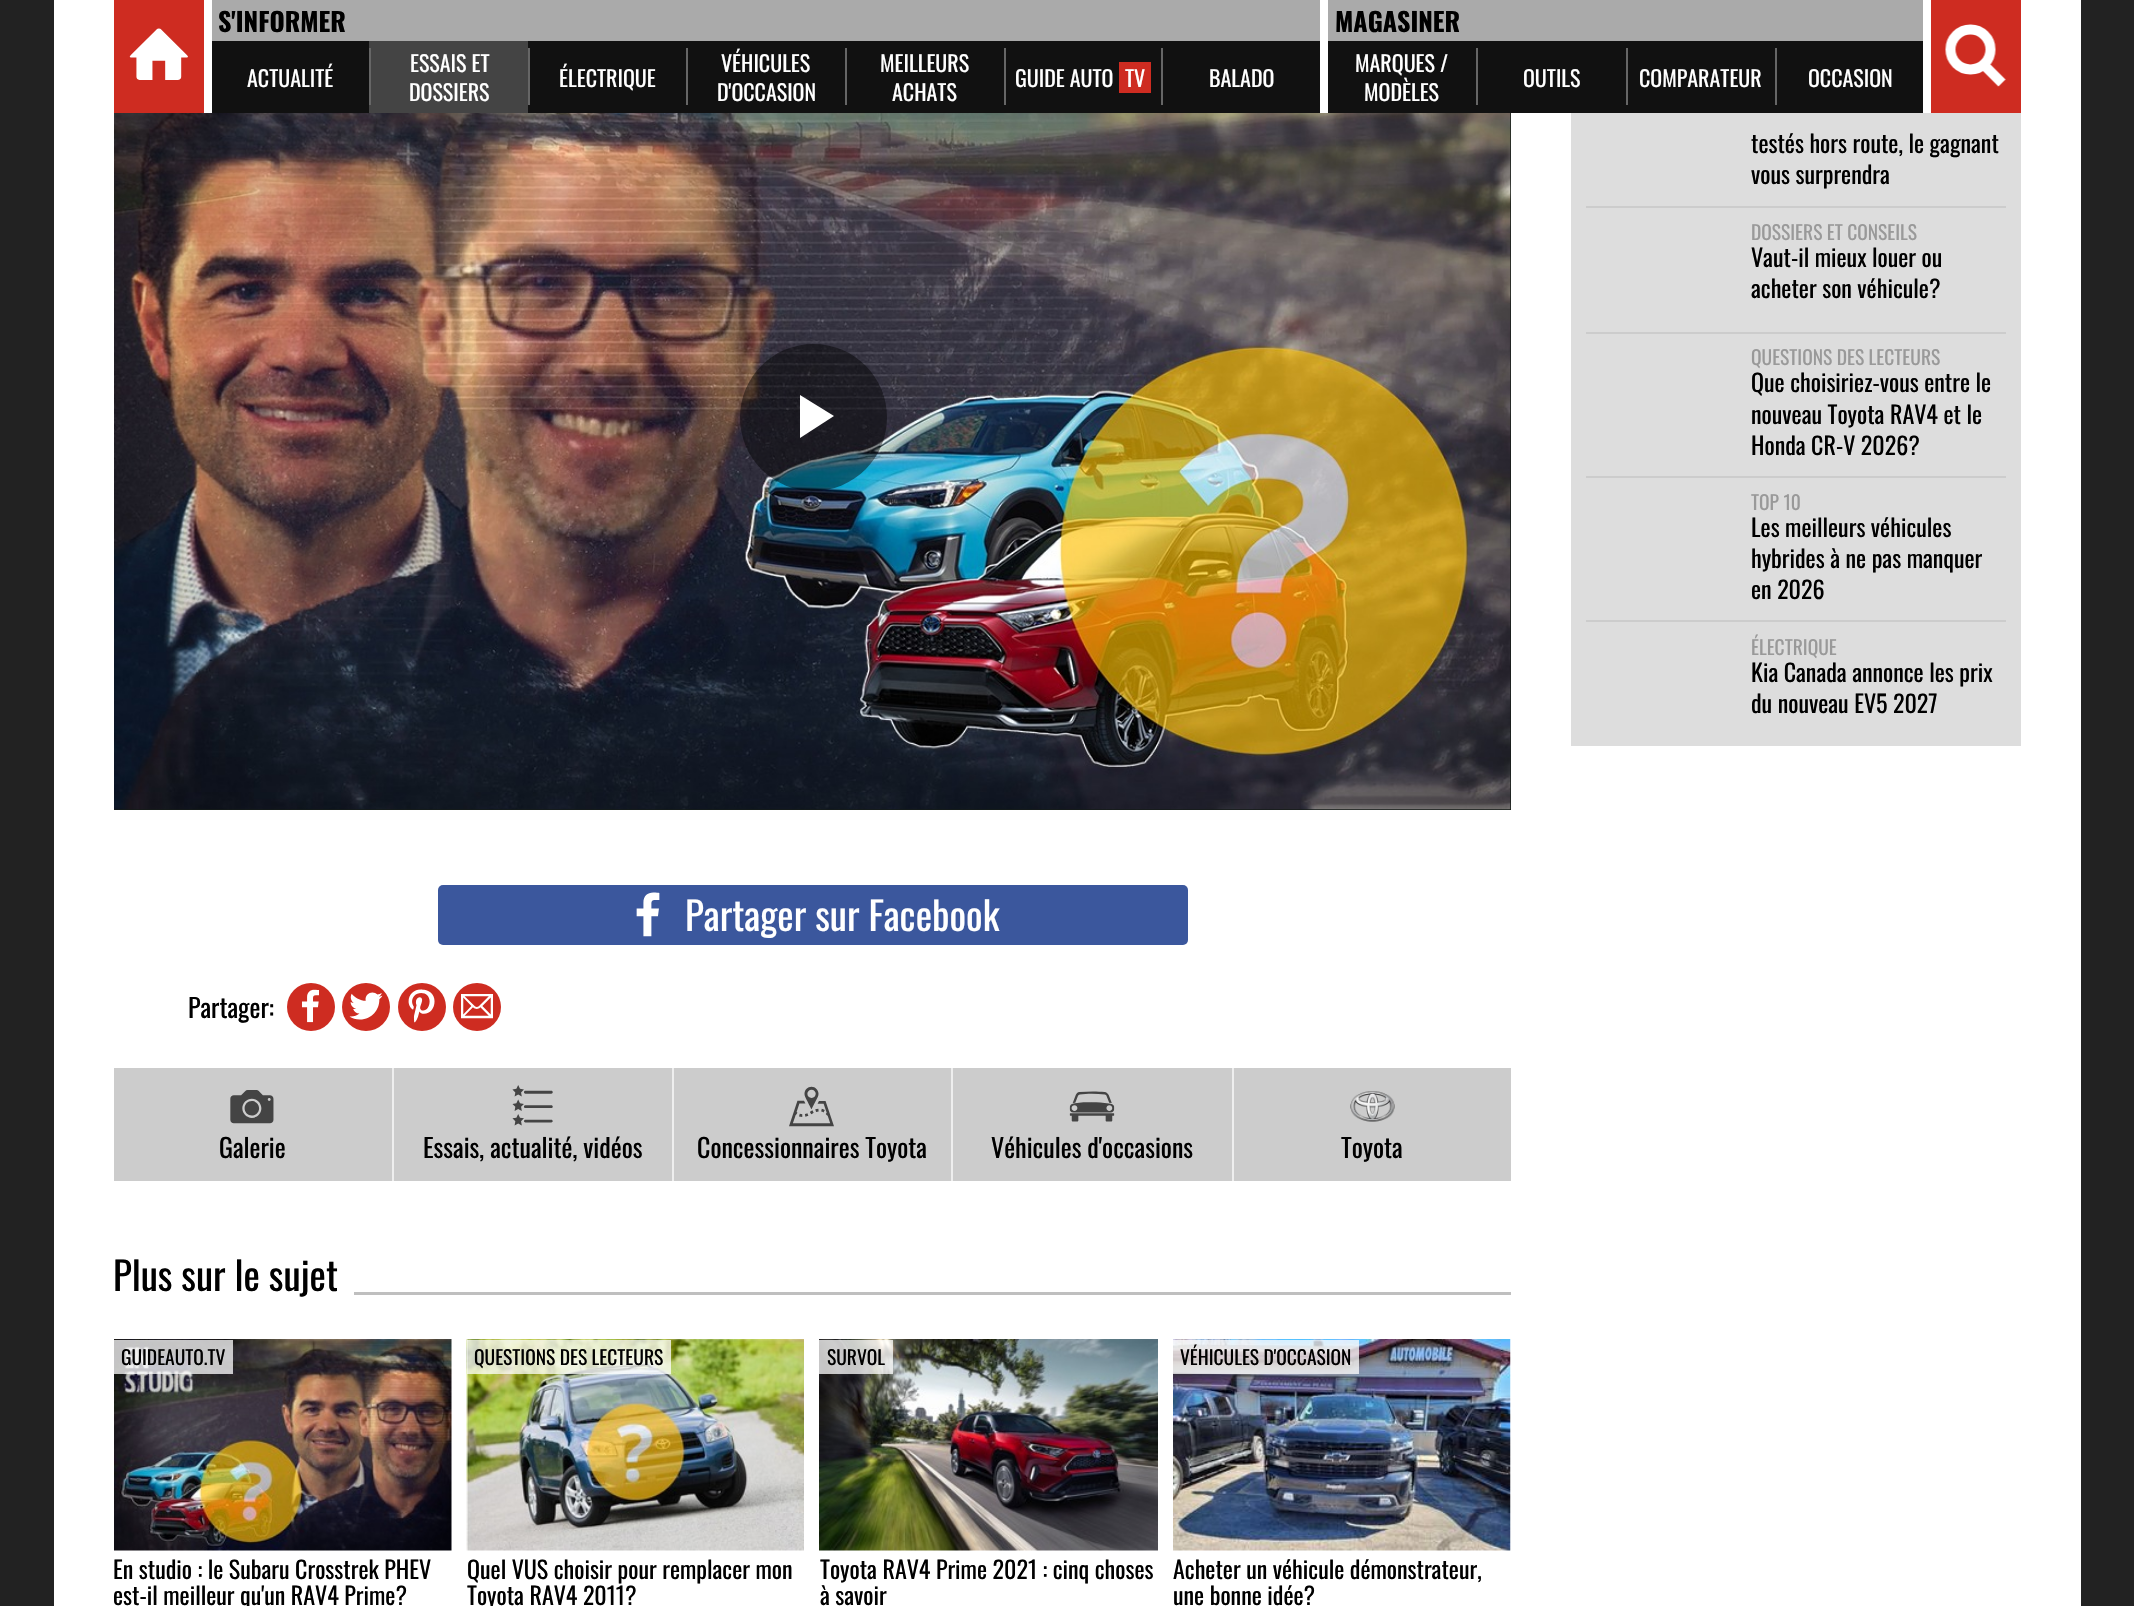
void draw(SkCanvas* canvas) {
	SkPaint fill;
	fill.setAntiAlias(true);
	auto makeFont = [&](const char* family, int weight, float size, bool italic = false) {
		SkFontStyle style(weight, SkFontStyle::kNormal_Width,
			italic ? SkFontStyle::kItalic_Slant : SkFontStyle::kUpright_Slant);
		SkFont result(fontMgr->matchFamilyStyle(family, style), size);
		result.setSubpixel(true);
		return result;
	};
	auto text = [&](const char* s, float x, float y, const SkFont& font) {
		canvas->drawString(s, x, y, font, fill);
	};
	auto box = [&](float l, float t, float r, float b) {
		canvas->drawRect(SkRect::MakeLTRB(l, t, r, b), fill);
	};
	auto roundBox = [&](float l, float t, float r, float b, float radius) {
		canvas->drawRoundRect(SkRect::MakeLTRB(l, t, r, b), radius, radius, fill);
	};
	auto picture = [&](const char* path, float l, float t, float r, float b) {
		auto image = SkImages::DeferredFromEncodedData(SkData::MakeFromFileName(path));
		canvas->drawImageRect(image, SkRect::MakeLTRB(l, t, r, b), SkSamplingOptions());
	};
	canvas->clear(0xFF222222);
	fill.setColor(0xFFFFFFFF);
	box(54, 0, 2081, 1606);
	fill.setColor(0xFFCE2C21);
	box(114, 0, 204, 113);
	picture("image0.png", 129, 28, 188, 80);
	fill.setColor(0xFFAAAAAA);
	box(212, 0, 1320, 41);
	fill.setColor(0xFF111111);
	box(212, 41, 1320, 113);
	fill.setColor(0xFF444444);
	box(369, 41, 528, 113);
	fill.setColor(0xFF666666);
	box(369, 48, 371, 105);
	box(528, 48, 530, 105);
	box(686, 48, 688, 105);
	box(845, 48, 847, 105);
	box(1004, 48, 1006, 105);
	fill.setColor(0xFFCE2C21);
	box(1119, 62, 1151, 93);
	fill.setColor(0xFF666666);
	box(1161, 48, 1163, 105);
	fill.setColor(0xFFAAAAAA);
	box(1328, 0, 1923, 41);
	fill.setColor(0xFF111111);
	box(1328, 41, 1923, 113);
	fill.setColor(0xFF666666);
	box(1476, 48, 1478, 105);
	box(1626, 48, 1628, 105);
	box(1775, 48, 1777, 105);
	fill.setColor(0xFFCE2C21);
	box(1931, 0, 2021, 113);
	picture("image1.png", 1945, 24, 2006, 87);
	fill.setColor(0xFFDDDDDD);
	box(1571, 113, 2021, 746);
	fill.setColor(0xFFCCCCCC);
	box(1586, 206, 2006, 208);
	box(1586, 332, 2006, 334);
	box(1586, 476, 2006, 478);
	box(1586, 620, 2006, 622);
	fill.setColor(0xFF151B17);
	box(114, 113, 1511, 810);
	picture("image2.png", 114, 113, 1511, 810);
	fill.setColor(0x73000000);
	canvas->drawCircle(813.5f, 417.5f, 73.5f, fill);
	fill.setColor(0xFFFFFFFF);
	canvas->drawPath(SkPathBuilder().moveTo(800, 395).lineTo(800, 438).lineTo(834, 416).close().detach(), fill);
	fill.setColor(0xFF3B579D);
	roundBox(438, 885, 1188, 945, 5);
	picture("image3.png", 636, 892, 660, 937);
	fill.setColor(0xFFCE2C21);
	canvas->drawCircle(311, 1007, 24, fill);
	picture("image4.png", 302, 989, 319, 1023);
	canvas->drawCircle(366, 1007, 24, fill);
	picture("image5.png", 349, 992, 383, 1020);
	canvas->drawCircle(422, 1007, 24, fill);
	picture("image6.png", 408, 989, 435, 1023);
	canvas->drawCircle(477, 1007, 24, fill);
	picture("image7.png", 461, 994, 493, 1019);
	fill.setColor(0xFFCCCCCC);
	box(114, 1068, 1511, 1181);
	picture("image8.png", 230, 1090, 274, 1124);
	fill.setColor(0xFFEEEEEE);
	box(392, 1068, 394, 1181);
	picture("image9.png", 512, 1085, 553, 1126);
	box(672, 1068, 674, 1181);
	picture("image10.png", 789, 1086, 834, 1127);
	box(951, 1068, 953, 1181);
	picture("image11.png", 1069, 1091, 1115, 1122);
	box(1232, 1068, 1234, 1181);
	picture("image12.png", 1350, 1091, 1395, 1122);
	fill.setColor(0xFFBFBFBF);
	box(354, 1292, 1511, 1295);
	picture("image13.png", 114, 1339, 452, 1551);
	fill.setColor(0xBFFFFFFF);
	box(114, 1340, 233, 1374);
	picture("image14.png", 466, 1339, 804, 1551);
	box(467, 1340, 671, 1374);
	picture("image15.png", 819, 1339, 1158, 1551);
	box(819, 1340, 893, 1374);
	picture("image16.png", 1173, 1339, 1511, 1551);
	box(1173, 1340, 1359, 1374);
	auto font1 = makeFont("Oswald", 700, 26);
	fill.setColor(0xFF000000);
	text("S'INFORMER", 218, 32, font1);
	auto font2 = makeFont("Oswald", 400, 22);
	fill.setColor(0xFFFFFFFF);
	text("ACTUALITÉ", 247, 87, font2);
	text("ESSAIS ET", 410, 72, font2);
	text("DOSSIERS", 409, 101, font2);
	text("ÉLECTRIQUE", 559, 87, font2);
	text("VÉHICULES", 721, 72, font2);
	text("D'OCCASION", 717, 101, font2);
	text("MEILLEURS", 880, 72, font2);
	text("ACHATS", 892, 101, font2);
	text("GUIDE AUTO", 1015, 87, font2);
	text("TV", 1125, 87, font2);
	text("BALADO", 1209, 87, font2);
	fill.setColor(0xFF000000);
	text("MAGASINER", 1335, 32, font1);
	fill.setColor(0xFFFFFFFF);
	text("MARQUES /", 1355, 72, font2);
	text("MODÈLES", 1364, 101, font2);
	text("OUTILS", 1523, 87, font2);
	text("COMPARATEUR", 1639, 87, font2);
	text("OCCASION", 1808, 87, font2);
	auto font3 = makeFont("Oswald", 400, 24);
	fill.setColor(0xFF000000);
	text("testés hors route, le gagnant", 1751, 153, font3);
	text("vous surprendra", 1751, 184, font3);
	auto font4 = makeFont("Oswald", 400, 19.5f);
	fill.setColor(0xFF999999);
	text("DOSSIERS ET CONSEILS", 1751, 240, font4);
	fill.setColor(0xFF000000);
	text("Vaut-il mieux louer ou", 1751, 267, font3);
	text("acheter son véhicule?", 1751, 298, font3);
	fill.setColor(0xFF999999);
	text("QUESTIONS DES LECTEURS", 1751, 365, font4);
	fill.setColor(0xFF000000);
	text("Que choisiriez-vous entre le", 1751, 392, font3);
	text("nouveau Toyota RAV4 et le", 1751, 424, font3);
	text("Honda CR-V 2026?", 1751, 455, font3);
	fill.setColor(0xFF999999);
	text("TOP 10", 1751, 510, font4);
	fill.setColor(0xFF000000);
	text("Les meilleurs véhicules", 1751, 537, font3);
	text("hybrides à ne pas manquer", 1751, 568, font3);
	text("en 2026", 1751, 599, font3);
	fill.setColor(0xFF999999);
	text("ÉLECTRIQUE", 1751, 655, font4);
	fill.setColor(0xFF000000);
	text("Kia Canada annonce les prix", 1751, 682, font3);
	text("du nouveau EV5 2027", 1751, 713, font3);
	auto font5 = makeFont("Oswald", 400, 39);
	fill.setColor(0xFFFFFFFF);
	text("Partager sur Facebook", 685, 931, font5);
	auto font6 = makeFont("Oswald", 400, 26);
	fill.setColor(0xFF000000);
	text("Partager:", 188, 1018, font6);
	text("Galerie", 219, 1158, font6);
	text("Essais, actualité, vidéos", 423, 1158, font6);
	text("Concessionnaires Toyota", 697, 1158, font6);
	text("Véhicules d'occasions", 991, 1158, font6);
	text("Toyota", 1341, 1158, font6);
	text("Plus sur le sujet", 113, 1291, font5);
	text("GUIDEAUTO.TV", 121, 1365, font4);
	text("En studio : le Subaru Crosstrek PHEV", 113, 1579, font3);
	text("est-il meilleur qu'un RAV4 Prime?", 113, 1605, font3);
	text("QUESTIONS DES LECTEURS", 474, 1365, font4);
	text("Quel VUS choisir pour remplacer mon", 467, 1579, font3);
	text("Toyota RAV4 2011?", 467, 1605, font3);
	text("SURVOL", 827, 1365, font4);
	text("Toyota RAV4 Prime 2021 : cinq choses", 820, 1579, font3);
	text("à savoir", 820, 1605, font3);
	text("VÉHICULES D'OCCASION", 1180, 1365, font4);
	text("Acheter un véhicule démonstrateur,", 1173, 1579, font3);
	text("une bonne idée?", 1173, 1605, font3);
}
